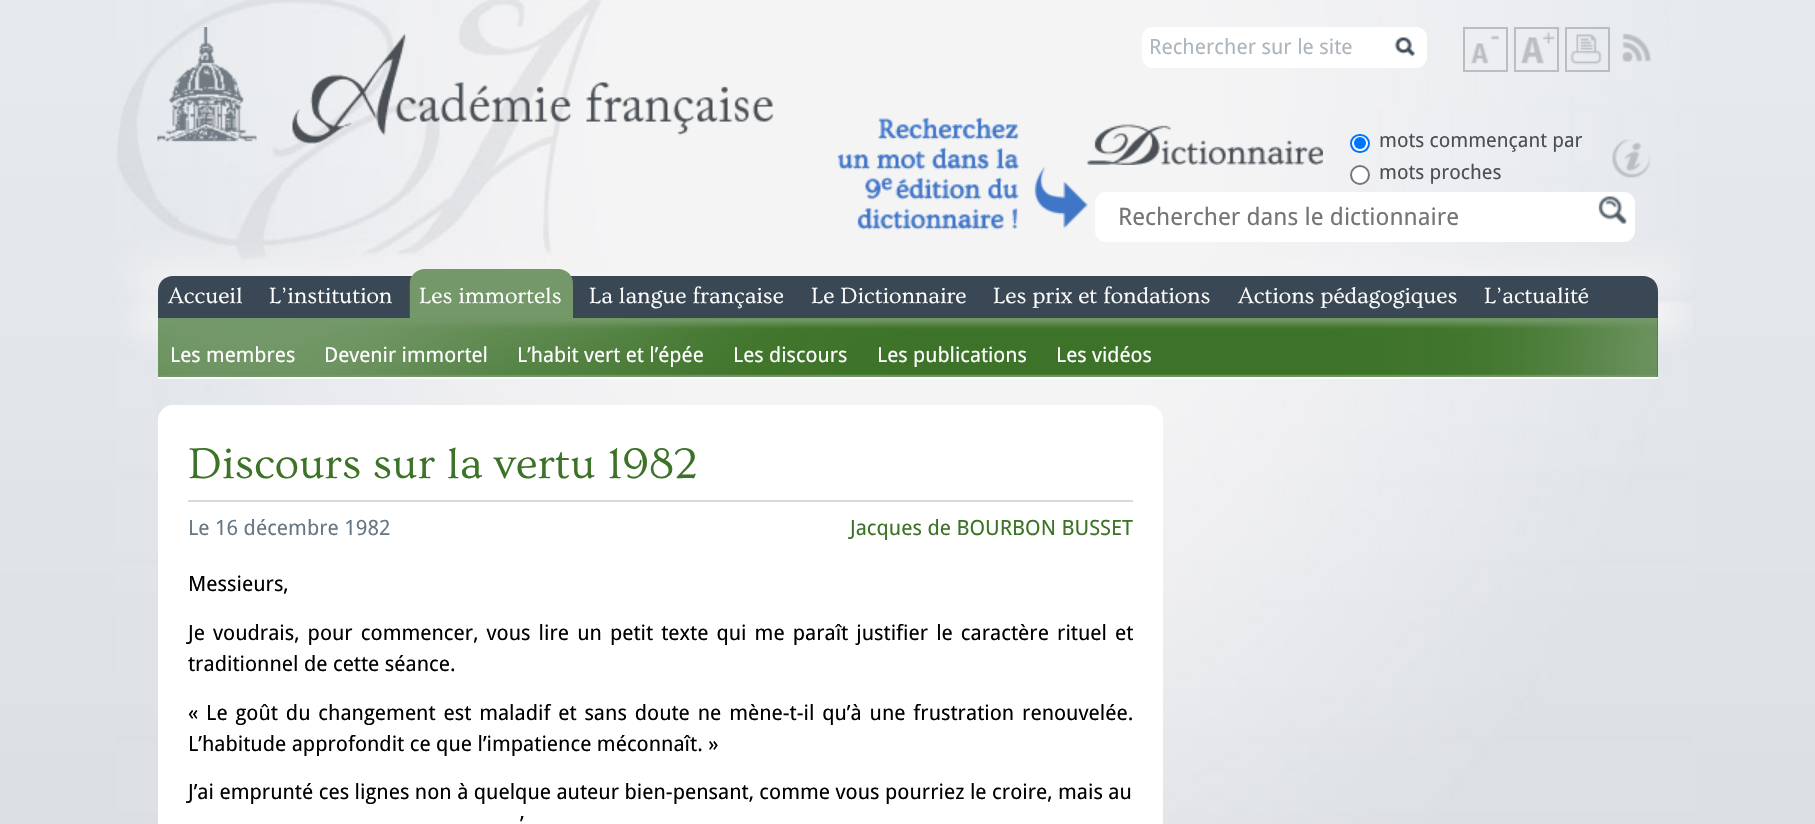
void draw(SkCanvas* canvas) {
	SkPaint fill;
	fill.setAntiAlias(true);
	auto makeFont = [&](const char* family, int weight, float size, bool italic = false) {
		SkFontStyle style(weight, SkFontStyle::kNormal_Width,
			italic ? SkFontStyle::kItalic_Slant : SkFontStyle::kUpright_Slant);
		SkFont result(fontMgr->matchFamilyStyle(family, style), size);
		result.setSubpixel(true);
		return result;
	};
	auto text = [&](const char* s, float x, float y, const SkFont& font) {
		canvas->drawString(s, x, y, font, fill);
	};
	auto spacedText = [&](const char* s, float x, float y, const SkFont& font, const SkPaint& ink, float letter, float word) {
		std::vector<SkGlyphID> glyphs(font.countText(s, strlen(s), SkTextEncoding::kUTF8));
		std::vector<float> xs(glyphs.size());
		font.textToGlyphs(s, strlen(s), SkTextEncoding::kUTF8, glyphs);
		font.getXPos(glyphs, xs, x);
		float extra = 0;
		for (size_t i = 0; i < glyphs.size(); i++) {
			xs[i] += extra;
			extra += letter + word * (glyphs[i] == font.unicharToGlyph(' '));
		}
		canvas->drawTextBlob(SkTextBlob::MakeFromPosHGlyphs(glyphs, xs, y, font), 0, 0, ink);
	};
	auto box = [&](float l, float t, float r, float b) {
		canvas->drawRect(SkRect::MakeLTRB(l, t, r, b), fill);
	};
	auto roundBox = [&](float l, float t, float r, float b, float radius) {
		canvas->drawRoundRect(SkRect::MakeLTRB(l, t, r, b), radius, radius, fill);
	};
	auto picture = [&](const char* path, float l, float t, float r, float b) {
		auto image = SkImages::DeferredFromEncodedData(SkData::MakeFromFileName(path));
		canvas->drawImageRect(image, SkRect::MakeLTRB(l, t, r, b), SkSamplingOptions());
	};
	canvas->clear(0xFFFFFFFF);
	picture("image0.png", 0, 0, 1815, 824);
	picture("image1.png", 116, 0, 1693, 824);
	picture("image2.png", 157, 27, 774, 144);
	fill.setColor(0xFFFFFFFF);
	roundBox(1142, 27, 1427, 68, 11);
	picture("image3.png", 1394, 37, 1415, 57);
	picture("image4.png", 1471, 35, 1499, 64);
	fill.setStyle(SkPaint::kStroke_Style);
	fill.setStrokeWidth(2);
	fill.setColor(0xFFBABEC2);
	canvas->drawRect(SkRect::MakeLTRB(1464, 28, 1507, 71), fill);
	picture("image5.png", 1521, 31, 1555, 64);
	canvas->drawRect(SkRect::MakeLTRB(1515, 28, 1558, 71), fill);
	picture("image6.png", 1570, 34, 1602, 65);
	canvas->drawRect(SkRect::MakeLTRB(1566, 28, 1609, 71), fill);
	picture("image7.png", 1621, 33, 1652, 62);
	picture("image8.png", 837, 117, 1088, 230);
	picture("image9.png", 1087, 124, 1323, 165);
	fill.setStyle(SkPaint::kFill_Style);
	fill.setColor(0xFFFFFFFF);
	canvas->drawRoundRect(SkRect::MakeLTRB(1351, 135, 1369, 152), 8.5f, 8.5f, fill);
	fill.setStyle(SkPaint::kStroke_Style);
	fill.setColor(0xFF0075FF);
	canvas->drawRoundRect(SkRect::MakeLTRB(1351, 135, 1369, 152), 8.5f, 8.5f, fill);
	fill.setStyle(SkPaint::kFill_Style);
	canvas->drawCircle(1360, 143, 6, fill);
	fill.setColor(0xFFFFFFFF);
	canvas->drawCircle(1360, 175, 9, fill);
	fill.setStyle(SkPaint::kStroke_Style);
	fill.setColor(0xFF767676);
	canvas->drawCircle(1360, 175, 9, fill);
	picture("image10.png", 1612, 139, 1650, 178);
	fill.setStyle(SkPaint::kFill_Style);
	fill.setColor(0xFFFFFFFF);
	roundBox(1095, 192, 1635, 242, 11);
	picture("image11.png", 1598, 196, 1627, 224);
	fill.setColor(0xFF3A4754);
	canvas->drawPath(SkPathBuilder().moveTo(173, 276).lineTo(1643, 276).cubicTo(1651.5f, 276, 1658, 282.5f, 1658, 291).lineTo(1658, 378).lineTo(158, 378).lineTo(158, 291).cubicTo(158, 282.5f, 164.5f, 276, 173, 276).close().detach(), fill);
	fill.setColor(0xFF3D7328);
	canvas->drawPath(SkPathBuilder().moveTo(425, 269).lineTo(558, 269).cubicTo(566.5f, 269, 573, 275.5f, 573, 284).lineTo(573, 318).lineTo(410, 318).lineTo(410, 284).cubicTo(410, 275.5f, 416.5f, 269, 425, 269).close().detach(), fill);
	picture("image12.png", 409, 269, 573, 318);
	box(158, 318, 1658, 377);
	picture("image13.png", 157, 318, 1658, 378);
	fill.setColor(0xFFFFFFFF);
	box(158, 377, 1658, 379);
	roundBox(158, 405, 1163, 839, 15);
	fill.setColor(0xFFD9D9D9);
	box(188, 500, 1133, 502);
	auto font1 = makeFont("Droid Sans", 400, 21);
	fill.setColor(0xFFAEB6BD);
	text("Rechercher sur le site", 1149, 54, font1);
	auto font2 = makeFont("Droid Sans", 400, 20);
	fill.setColor(0xFF4A5056);
	text("mots commençant par", 1379, 147, font2);
	text("mots proches", 1379, 179, font2);
	auto font3 = makeFont("Droid Sans", 400, 24);
	fill.setColor(0xFF757575);
	text("Rechercher dans le dictionnaire", 1118, 225, font3);
	auto font4 = makeFont("Ovo", 400, 23);
	fill.setColor(0xFFFFFFFF);
	text("Accueil", 168, 303, font4);
	text("La langue française", 589, 303, font4);
	text("Les prix et fondations", 993, 303, font4);
	text("Actions pédagogiques", 1238, 303, font4);
	text("Les immortels", 419, 303, font4);
	auto font5 = makeFont("Droid Sans", 400, 20.75f);
	text("Les membres", 170, 362, font5);
	text("Devenir immortel", 324, 362, font5);
	text("L’habit vert et l’épée", 517, 362, font5);
	text("Les discours", 733, 362, font5);
	text("Les publications", 877, 362, font5);
	text("Les vidéos", 1056, 362, font5);
	text("L’institution", 269, 303, font4);
	text("Le Dictionnaire", 811, 303, font4);
	text("L’actualité", 1484, 303, font4);
	auto font6 = makeFont("Ovo", 400, 45);
	fill.setColor(0xFF3D7328);
	text("Discours sur la vertu 1982", 188, 478, font6);
	fill.setColor(0xFF687784);
	text("Le 16 décembre 1982", 188, 535, font1);
	fill.setColor(0xFF3D7328);
	text("Jacques de BOURBON BUSSET", 850, 535, font1);
	fill.setColor(0xFF000000);
	text("Messieurs,", 188, 591, font1);
	spacedText("Je voudrais, pour commencer, vous lire un petit texte qui me paraît justifier le caractère rituel et", 188, 640, font1, fill, 0, 2.6f);
	text("traditionnel de cette séance.", 188, 671, font1);
	spacedText("« Le goût du changement est maladif et sans doute ne mène-t-il qu’à une frustration renouvelée.", 188, 720, font1, fill, 0, 2.4f);
	text("L’habitude approfondit ce que l’impatience méconnaît. »", 188, 751, font1);
	text("J’ai emprunté ces lignes non à quelque auteur bien-pensant, comme vous pourriez le croire, mais au", 188, 799, font1);
	spacedText("’", 520, 831, font1, fill, 0, 4);
}
